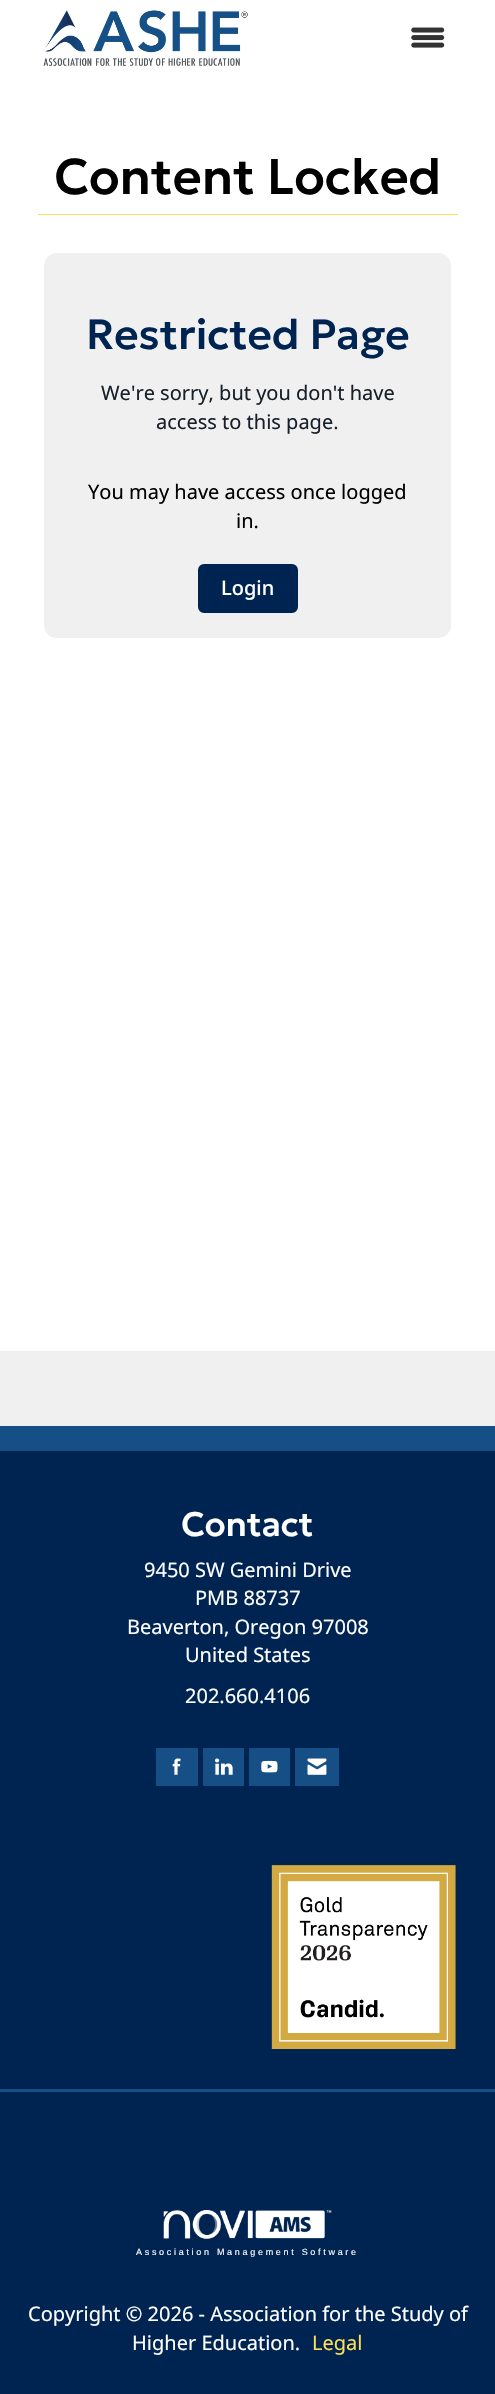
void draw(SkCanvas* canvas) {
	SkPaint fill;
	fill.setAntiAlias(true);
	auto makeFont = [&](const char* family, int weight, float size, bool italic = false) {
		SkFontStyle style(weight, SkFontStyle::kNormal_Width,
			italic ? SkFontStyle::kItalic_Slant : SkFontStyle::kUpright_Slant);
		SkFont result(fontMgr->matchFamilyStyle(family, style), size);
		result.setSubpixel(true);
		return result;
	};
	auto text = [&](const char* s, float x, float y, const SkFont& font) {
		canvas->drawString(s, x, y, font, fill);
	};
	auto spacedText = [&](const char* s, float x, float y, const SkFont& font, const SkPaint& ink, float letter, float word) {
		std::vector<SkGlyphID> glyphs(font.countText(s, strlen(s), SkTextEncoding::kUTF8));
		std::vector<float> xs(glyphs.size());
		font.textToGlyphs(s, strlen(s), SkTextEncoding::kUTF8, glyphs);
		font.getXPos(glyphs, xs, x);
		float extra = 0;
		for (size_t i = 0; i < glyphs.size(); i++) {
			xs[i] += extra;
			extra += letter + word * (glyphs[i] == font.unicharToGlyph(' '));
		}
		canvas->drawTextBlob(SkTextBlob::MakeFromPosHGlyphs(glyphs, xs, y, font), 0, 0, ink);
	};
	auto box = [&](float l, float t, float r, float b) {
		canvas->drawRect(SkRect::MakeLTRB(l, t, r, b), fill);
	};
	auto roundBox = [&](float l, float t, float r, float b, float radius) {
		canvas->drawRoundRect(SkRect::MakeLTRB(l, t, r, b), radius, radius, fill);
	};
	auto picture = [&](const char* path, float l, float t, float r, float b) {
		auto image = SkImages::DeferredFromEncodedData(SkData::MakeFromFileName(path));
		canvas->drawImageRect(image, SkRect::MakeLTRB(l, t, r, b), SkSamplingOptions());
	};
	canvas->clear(0xFFFFFFFF);
	picture("image0.png", 43, 10, 248, 66);
	picture("image1.png", 411, 27, 445, 48);
	fill.setColor(0xFFFFDF57);
	box(38, 214, 458, 215);
	fill.setColor(0xFFF0F0F0);
	roundBox(44, 253, 451, 638, 13);
	fill.setColor(0xFF002451);
	canvas->drawRoundRect(SkRect::MakeLTRB(199.5f, 565.5f, 296.5f, 611.5f), 4.5f, 4.5f, fill);
	fill.setStyle(SkPaint::kStroke_Style);
	fill.setStrokeWidth(3);
	canvas->drawRoundRect(SkRect::MakeLTRB(199.5f, 565.5f, 296.5f, 611.5f), 4.5f, 4.5f, fill);
	fill.setStyle(SkPaint::kFill_Style);
	fill.setColor(0xFFF0F0F0);
	box(0, 1351, 495, 1426);
	fill.setColor(0xFF164F86);
	box(0, 1426, 495, 1451);
	fill.setColor(0xFF002451);
	box(0, 1451, 495, 2089);
	fill.setColor(0xFF164F86);
	box(156, 1748, 198, 1786);
	picture("image2.png", 172, 1758, 181, 1775);
	box(203, 1748, 244, 1786);
	picture("image3.png", 215, 1758, 233, 1775);
	box(249, 1748, 290, 1786);
	picture("image4.png", 261, 1760, 278, 1773);
	box(295, 1748, 339, 1786);
	picture("image5.png", 307, 1758, 327, 1775);
	picture("image6.png", 271, 1865, 456, 2049);
	fill.setColor(0xFF002451);
	box(0, 2092, 495, 2394);
	fill.setColor(0xFF164F86);
	box(0, 2089, 495, 2092);
	picture("image7.png", 163, 2210, 332, 2239);
	auto font1 = makeFont("Geologica", 500, 50);
	fill.setColor(0xFF000000);
	text("Content Locked", 54, 194, font1);
	auto font2 = makeFont("Geologica", 500, 42);
	fill.setColor(0xFF002451);
	text("Restricted Page", 86, 349, font2);
	auto font3 = makeFont("Noto Sans", 400, 20);
	fill.setColor(0xFF17202A);
	text("We're sorry, but you don't have", 101, 400, font3);
	text("access to this page.", 156, 429, font3);
	fill.setColor(0xFF000000);
	text("You may have access once logged", 88, 499, font3);
	text("in.", 236, 528, font3);
	auto font4 = makeFont("Noto Sans", 500, 20);
	fill.setColor(0xFFFFFFFF);
	text("Login", 221, 595, font4);
	auto font5 = makeFont("Geologica", 500, 34);
	text("Contact", 181, 1536, font5);
	text("9450 SW Gemini Drive", 144, 1577, font3);
	text("PMB 88737", 195, 1605, font3);
	text("Beaverton, Oregon 97008", 127, 1634, font3);
	text("United States", 185, 1662, font3);
	text("202.660.4106", 185, 1703, font3);
	auto font6 = makeFont("Liberation Sans", 400, 9);
	spacedText("Association Management Software", 136, 2255, font6, fill, 2.7f, 0);
	text("Copyright © 2026 - Association for the Study of", 28, 2321, font3);
	text("Higher Education.", 132, 2350, font3);
	fill.setColor(0xFFFFDF57);
	text("Legal", 312, 2350, font3);
}
